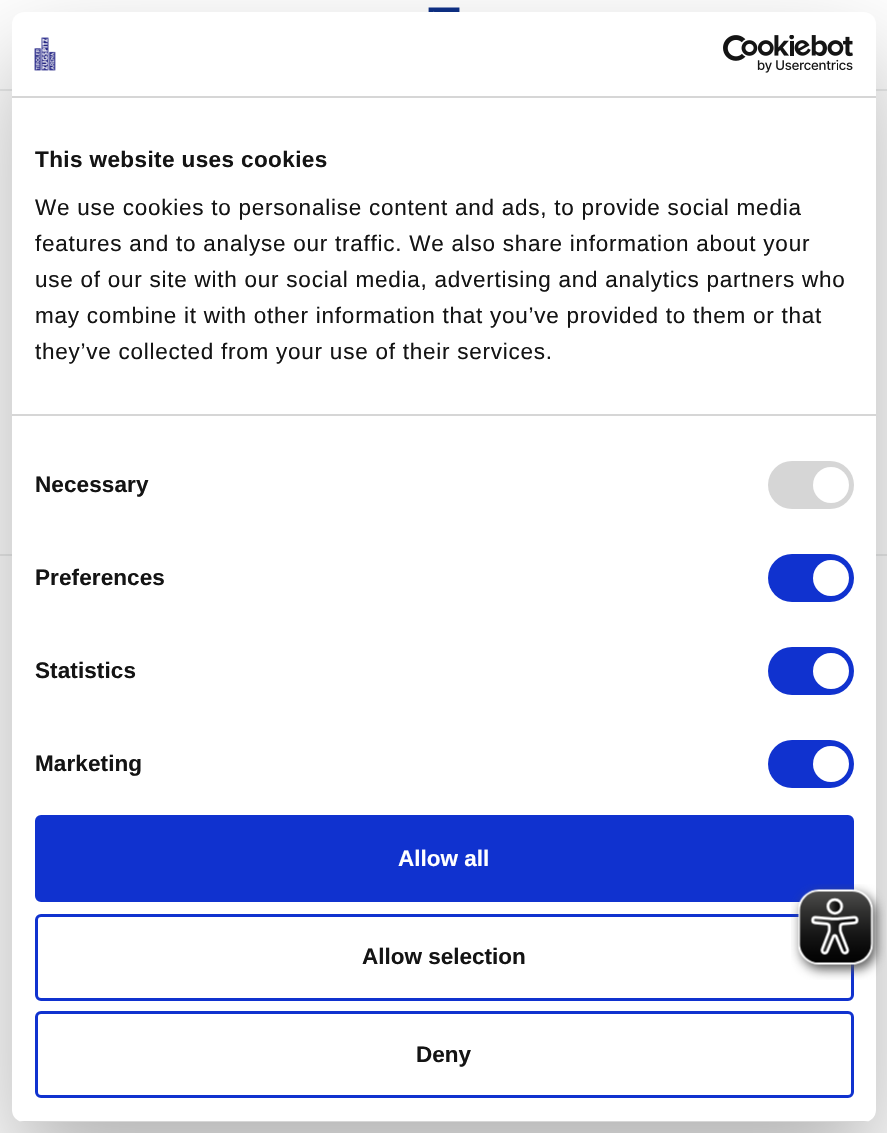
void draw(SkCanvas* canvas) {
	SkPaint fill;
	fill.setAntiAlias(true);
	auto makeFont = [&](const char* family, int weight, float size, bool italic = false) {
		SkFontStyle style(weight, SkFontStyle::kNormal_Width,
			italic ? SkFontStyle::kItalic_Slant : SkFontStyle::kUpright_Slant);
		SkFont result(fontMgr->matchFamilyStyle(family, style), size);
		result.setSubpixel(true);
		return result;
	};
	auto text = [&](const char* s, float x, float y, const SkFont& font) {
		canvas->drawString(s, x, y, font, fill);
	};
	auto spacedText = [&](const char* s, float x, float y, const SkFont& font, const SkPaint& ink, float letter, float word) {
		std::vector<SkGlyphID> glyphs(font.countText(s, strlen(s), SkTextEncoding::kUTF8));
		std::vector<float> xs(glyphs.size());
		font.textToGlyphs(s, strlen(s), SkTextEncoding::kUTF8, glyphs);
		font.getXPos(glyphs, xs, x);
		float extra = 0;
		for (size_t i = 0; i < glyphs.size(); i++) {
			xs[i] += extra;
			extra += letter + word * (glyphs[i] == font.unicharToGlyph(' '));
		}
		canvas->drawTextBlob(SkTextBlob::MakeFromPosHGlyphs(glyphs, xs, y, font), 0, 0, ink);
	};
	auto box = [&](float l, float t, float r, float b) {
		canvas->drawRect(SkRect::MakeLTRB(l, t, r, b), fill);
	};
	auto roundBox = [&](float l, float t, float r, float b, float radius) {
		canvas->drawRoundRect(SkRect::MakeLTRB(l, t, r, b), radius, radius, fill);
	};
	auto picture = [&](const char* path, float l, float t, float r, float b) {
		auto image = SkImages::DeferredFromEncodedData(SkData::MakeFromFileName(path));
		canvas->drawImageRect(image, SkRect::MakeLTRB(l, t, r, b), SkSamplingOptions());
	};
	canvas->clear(0xFFFFFFFF);
	fill.setColor(0xFFEBECEC);
	box(0, 89, 887, 91);
	picture("image0.png", 428, 7, 460, 12);
	box(0, 554, 887, 556);
	fill.setColor(0x4D000000);
	fill.setMaskFilter(SkMaskFilter::MakeBlur(kNormal_SkBlurStyle, 51));
	canvas->drawRoundRect(SkRect::MakeLTRB(12, 60, 876, 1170), 12, 12, fill);
	fill.setMaskFilter(nullptr);
	fill.setColor(0xFFFFFFFF);
	roundBox(12, 12, 876, 1122, 12);
	fill.setColor(0xFFD6D6D6);
	box(12, 96, 876, 98);
	picture("image1.png", 34, 37, 56, 71);
	picture("image2.png", 723, 35, 853, 73);
	box(12, 414, 876, 416);
	roundBox(768, 461, 854, 509, 24);
	fill.setColor(0xFFFFFFFF);
	canvas->drawCircle(831, 485, 18, fill);
	fill.setColor(0xFF1032CF);
	roundBox(768, 554, 854, 602, 24);
	fill.setColor(0xFFFFFFFF);
	canvas->drawCircle(831, 578, 18, fill);
	fill.setColor(0xFF1032CF);
	roundBox(768, 647, 854, 695, 24);
	fill.setColor(0xFFFFFFFF);
	canvas->drawCircle(831, 671, 18, fill);
	fill.setColor(0xFF1032CF);
	roundBox(768, 740, 854, 788, 24);
	fill.setColor(0xFFFFFFFF);
	canvas->drawCircle(831, 764, 18, fill);
	canvas->save();
	canvas->clipPath(SkPathBuilder().moveTo(24, 12).lineTo(864, 12).cubicTo(870.5f, 12, 876, 17.5f, 876, 24).lineTo(876, 1110).cubicTo(876, 1116.5f, 870.5f, 1122, 864, 1122).lineTo(24, 1122).cubicTo(17.5f, 1122, 12, 1116.5f, 12, 1110).lineTo(12, 24).cubicTo(12, 17.5f, 17.5f, 12, 24, 12).close().detach(), true);
	fill.setColor(0xFFD6D6D6);
	box(12, 1121, 876, 1122);
	canvas->restore();
	fill.setColor(0xFF1032CF);
	canvas->drawRoundRect(SkRect::MakeLTRB(36.5f, 816.5f, 852.5f, 900.5f), 4.5f, 4.5f, fill);
	fill.setStyle(SkPaint::kStroke_Style);
	fill.setStrokeWidth(3);
	canvas->drawRoundRect(SkRect::MakeLTRB(36.5f, 816.5f, 852.5f, 900.5f), 4.5f, 4.5f, fill);
	canvas->drawRoundRect(SkRect::MakeLTRB(36.5f, 915.5f, 852.5f, 999.5f), 4.5f, 4.5f, fill);
	canvas->drawRoundRect(SkRect::MakeLTRB(36.5f, 1012.5f, 852.5f, 1096.5f), 4.5f, 4.5f, fill);
	picture("image3.png", 791, 884, 886, 980);
	auto font1 = makeFont("Liberation Sans", 700, 22.5f);
	fill.setStyle(SkPaint::kFill_Style);
	fill.setColor(0xFF141414);
	spacedText("This website uses cookies", 35, 167, font1, fill, 0.4f, 0);
	auto font2 = makeFont("Liberation Sans", 400, 22.5f);
	spacedText("We use cookies to personalise content and ads, to provide social media", 35, 215, font2, fill, 0.75f, 0);
	spacedText("features and to analyse our traffic. We also share information about your", 35, 251, font2, fill, 0.75f, 0);
	spacedText("use of our site with our social media, advertising and analytics partners who", 35, 287, font2, fill, 0.75f, 0);
	spacedText("may combine it with other information that you’ve provided to them or that", 35, 323, font2, fill, 0.75f, 0);
	spacedText("they’ve collected from your use of their services.", 35, 359, font2, fill, 0.75f, 0);
	spacedText("Necessary", 35, 492, font1, fill, 0.1f, 0);
	spacedText("Preferences", 35, 585, font1, fill, 0.1f, 0);
	spacedText("Statistics", 35, 678, font1, fill, 0.1f, 0);
	spacedText("Marketing", 35, 771, font1, fill, 0.1f, 0);
	fill.setColor(0xFFFFFFFF);
	text("Allow all", 398, 866, font1);
	fill.setColor(0xFF141414);
	text("Allow selection", 362, 964, font1);
	text("Deny", 416, 1062, font1);
}
